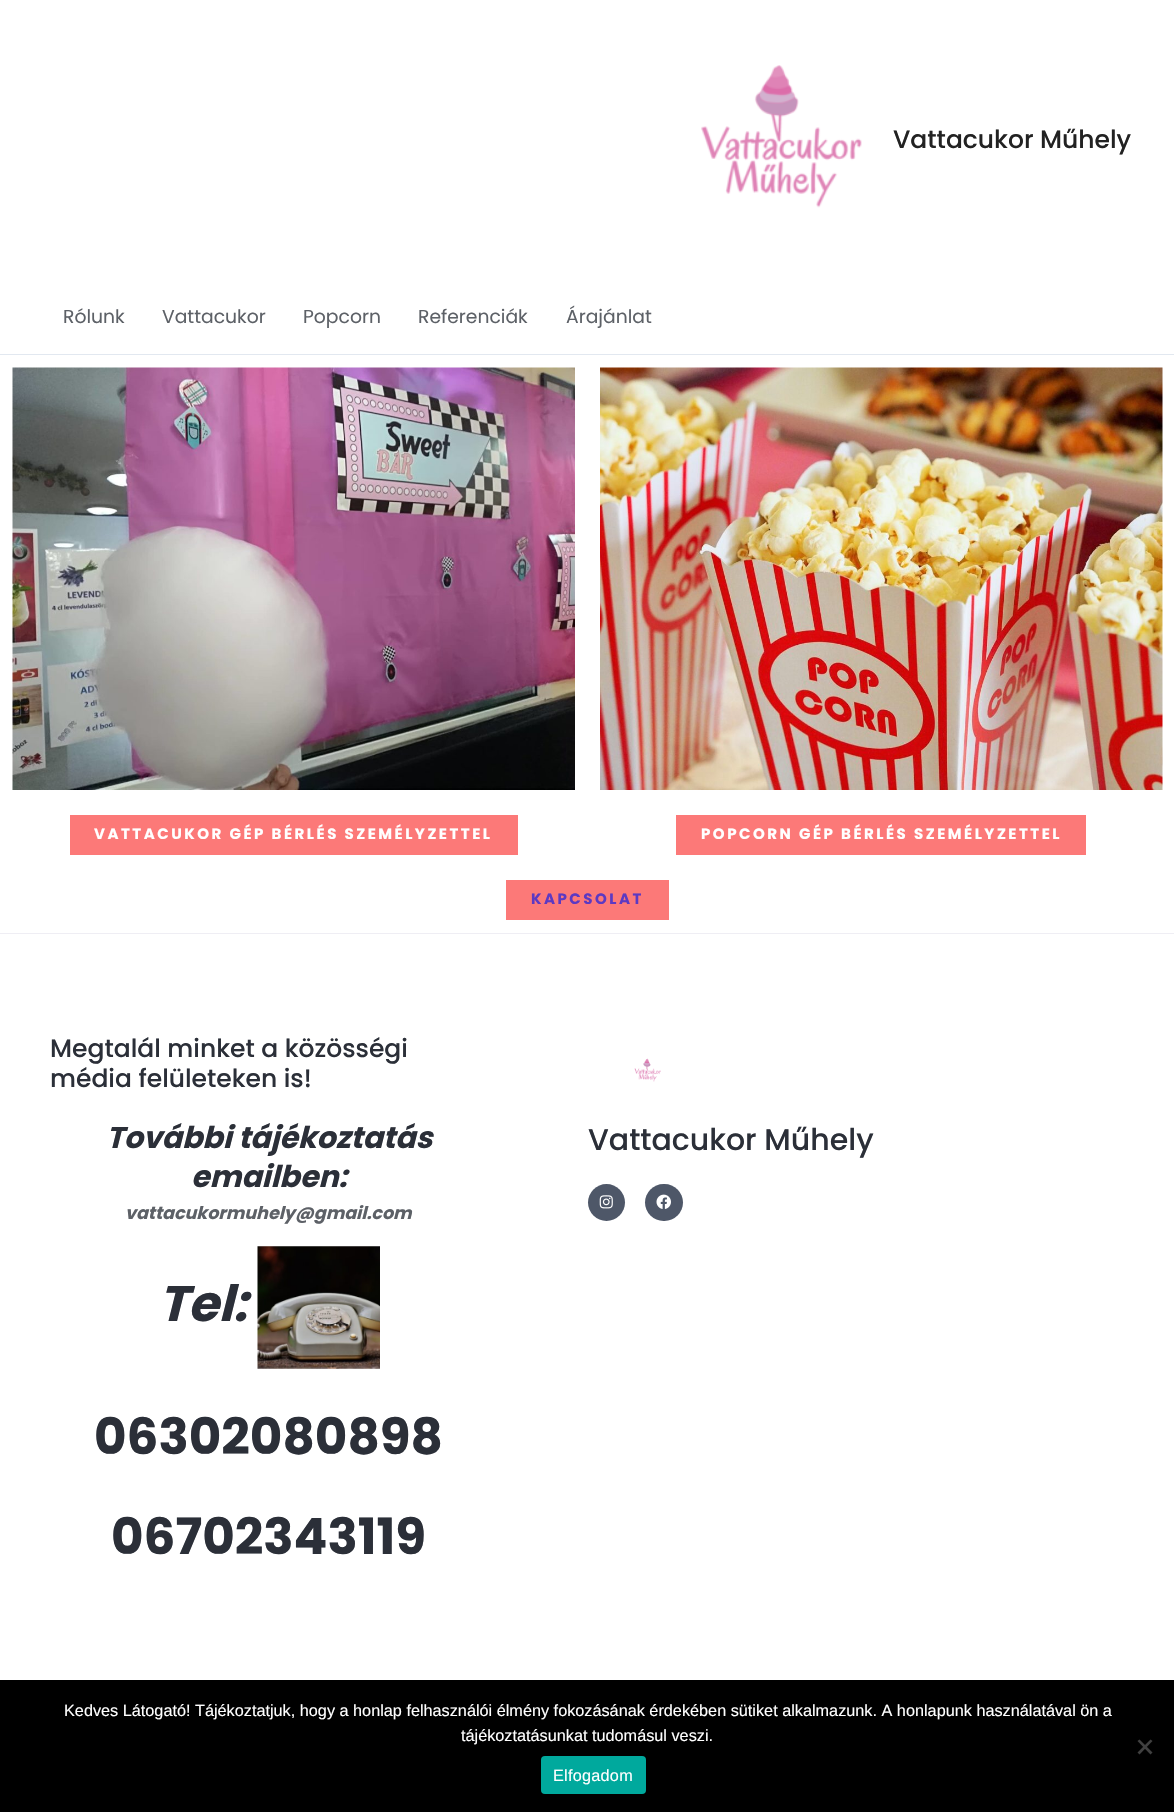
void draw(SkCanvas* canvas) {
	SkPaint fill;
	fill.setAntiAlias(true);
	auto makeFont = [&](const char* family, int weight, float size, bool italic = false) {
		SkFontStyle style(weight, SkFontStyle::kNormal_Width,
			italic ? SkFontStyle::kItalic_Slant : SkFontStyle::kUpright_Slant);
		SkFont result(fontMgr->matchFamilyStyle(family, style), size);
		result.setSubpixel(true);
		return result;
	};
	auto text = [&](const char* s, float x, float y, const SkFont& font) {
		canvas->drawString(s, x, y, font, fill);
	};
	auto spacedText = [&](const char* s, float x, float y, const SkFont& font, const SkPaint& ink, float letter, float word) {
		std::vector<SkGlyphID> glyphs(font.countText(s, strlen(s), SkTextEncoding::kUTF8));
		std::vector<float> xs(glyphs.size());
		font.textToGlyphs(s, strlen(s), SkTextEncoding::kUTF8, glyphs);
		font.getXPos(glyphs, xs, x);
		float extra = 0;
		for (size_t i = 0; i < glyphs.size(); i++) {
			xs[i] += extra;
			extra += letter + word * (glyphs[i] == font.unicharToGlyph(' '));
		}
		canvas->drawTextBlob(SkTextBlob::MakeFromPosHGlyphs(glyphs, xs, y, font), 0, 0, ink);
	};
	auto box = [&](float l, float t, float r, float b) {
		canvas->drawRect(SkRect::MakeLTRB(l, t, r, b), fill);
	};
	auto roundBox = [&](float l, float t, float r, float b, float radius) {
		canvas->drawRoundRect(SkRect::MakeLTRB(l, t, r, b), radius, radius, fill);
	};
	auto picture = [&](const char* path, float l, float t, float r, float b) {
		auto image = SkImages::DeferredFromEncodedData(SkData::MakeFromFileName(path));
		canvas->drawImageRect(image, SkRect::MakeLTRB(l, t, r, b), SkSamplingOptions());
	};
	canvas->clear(0xFFFFFFFF);
	fill.setColor(0xFFE2E8F0);
	box(0, 354, 1174, 355);
	picture("image0.png", 701, 65, 862, 208);
	picture("image1.png", 12, 367, 575, 790);
	picture("image2.png", 600, 367, 1163, 790);
	fill.setColor(0xFFFC7978);
	box(70, 815, 518, 855);
	box(676, 815, 1086, 855);
	box(506, 880, 669, 920);
	fill.setColor(0xFFEFEEF4);
	box(0, 933, 1174, 934);
	picture("image3.png", 257, 1246, 380, 1369);
	picture("image4.png", 634, 1058, 661, 1082);
	fill.setColor(0xFF4E5768);
	canvas->drawCircle(606.5f, 1202.5f, 18.5f, fill);
	picture("image5.png", 599, 1195, 613, 1209);
	roundBox(645, 1184, 683, 1221, 18.5f);
	picture("image6.png", 656, 1194, 671, 1209);
	fill.setColor(0xFF000000);
	box(0, 1680, 1174, 1812);
	fill.setColor(0xFF404040);
	canvas->drawPath(SkPathBuilder().moveTo(1150.5f, 1739.5f).lineTo(1152.5f, 1741).lineTo(1139.5f, 1754.5f).lineTo(1137.5f, 1752.5f).close().detach(), fill);
	canvas->drawPath(SkPathBuilder().moveTo(1137.5f, 1741).lineTo(1139.5f, 1739.5f).lineTo(1152.5f, 1752.5f).lineTo(1150.5f, 1754.5f).close().detach(), fill);
	fill.setColor(0xFF00A99D);
	roundBox(541, 1756, 646, 1794, 4);
	auto font1 = makeFont("Poppins", 500, 25);
	fill.setColor(0xFF222222);
	text("Vattacukor Műhely", 893, 148, font1);
	auto font2 = makeFont("Poppins", 400, 18.75f);
	fill.setColor(0xFF5D6167);
	text("Rólunk", 63, 323, font2);
	text("Vattacukor", 162, 323, font2);
	text("Popcorn", 303, 323, font2);
	text("Referenciák", 418, 323, font2);
	text("Árajánlat", 566, 323, font2);
	auto font3 = makeFont("Poppins", 700, 15);
	fill.setColor(0xFFFFFFFF);
	spacedText("VATTACUKOR GÉP BÉRLÉS SZEMÉLYZETTEL", 94, 839, font3, fill, 2.5f, 0);
	spacedText("POPCORN GÉP BÉRLÉS SZEMÉLYZETTEL", 701, 839, font3, fill, 2.5f, 0);
	fill.setColor(0xFF5D39C2);
	spacedText("KAPCSOLAT", 531, 904, font3, fill, 2.5f, 0);
	fill.setColor(0xFF2B2F38);
	text("Megtalál minket a közösségi", 50, 1057, font1);
	text("média felületeken is!", 50, 1087, font1);
	auto font4 = makeFont("Poppins", 700, 30, true);
	text("További tájékoztatás", 106, 1148, font4);
	text("emailben:", 191, 1187, font4);
	auto font5 = makeFont("Poppins", 700, 17.5f, true);
	fill.setColor(0xFF5D6167);
	text("vattacukormuhely@gmail.com", 125, 1219, font5);
	auto font6 = makeFont("Poppins", 700, 50, true);
	fill.setColor(0xFF2B2F38);
	text("Tel:", 158, 1321, font6);
	auto font7 = makeFont("Poppins", 700, 50);
	text("06302080898", 94, 1454, font7);
	text("06702343119", 111, 1554, font7);
	auto font8 = makeFont("Poppins", 500, 30);
	text("Vattacukor Műhely", 588, 1150, font8);
	auto font9 = makeFont("Liberation Sans", 400, 16.25f);
	fill.setColor(0xFFFFFFFF);
	text("Kedves Látogató! Tájékoztatjuk, hogy a honlap felhasználói élmény fokozásának érdekében sütiket alkalmazunk. A honlapunk használatával ön a", 64, 1716, font9);
	text("tájékoztatásunkat tudomásul veszi.", 461, 1741, font9);
	spacedText("Elfogadom", 553, 1781, font9, fill, 0.25f, 0);
}
